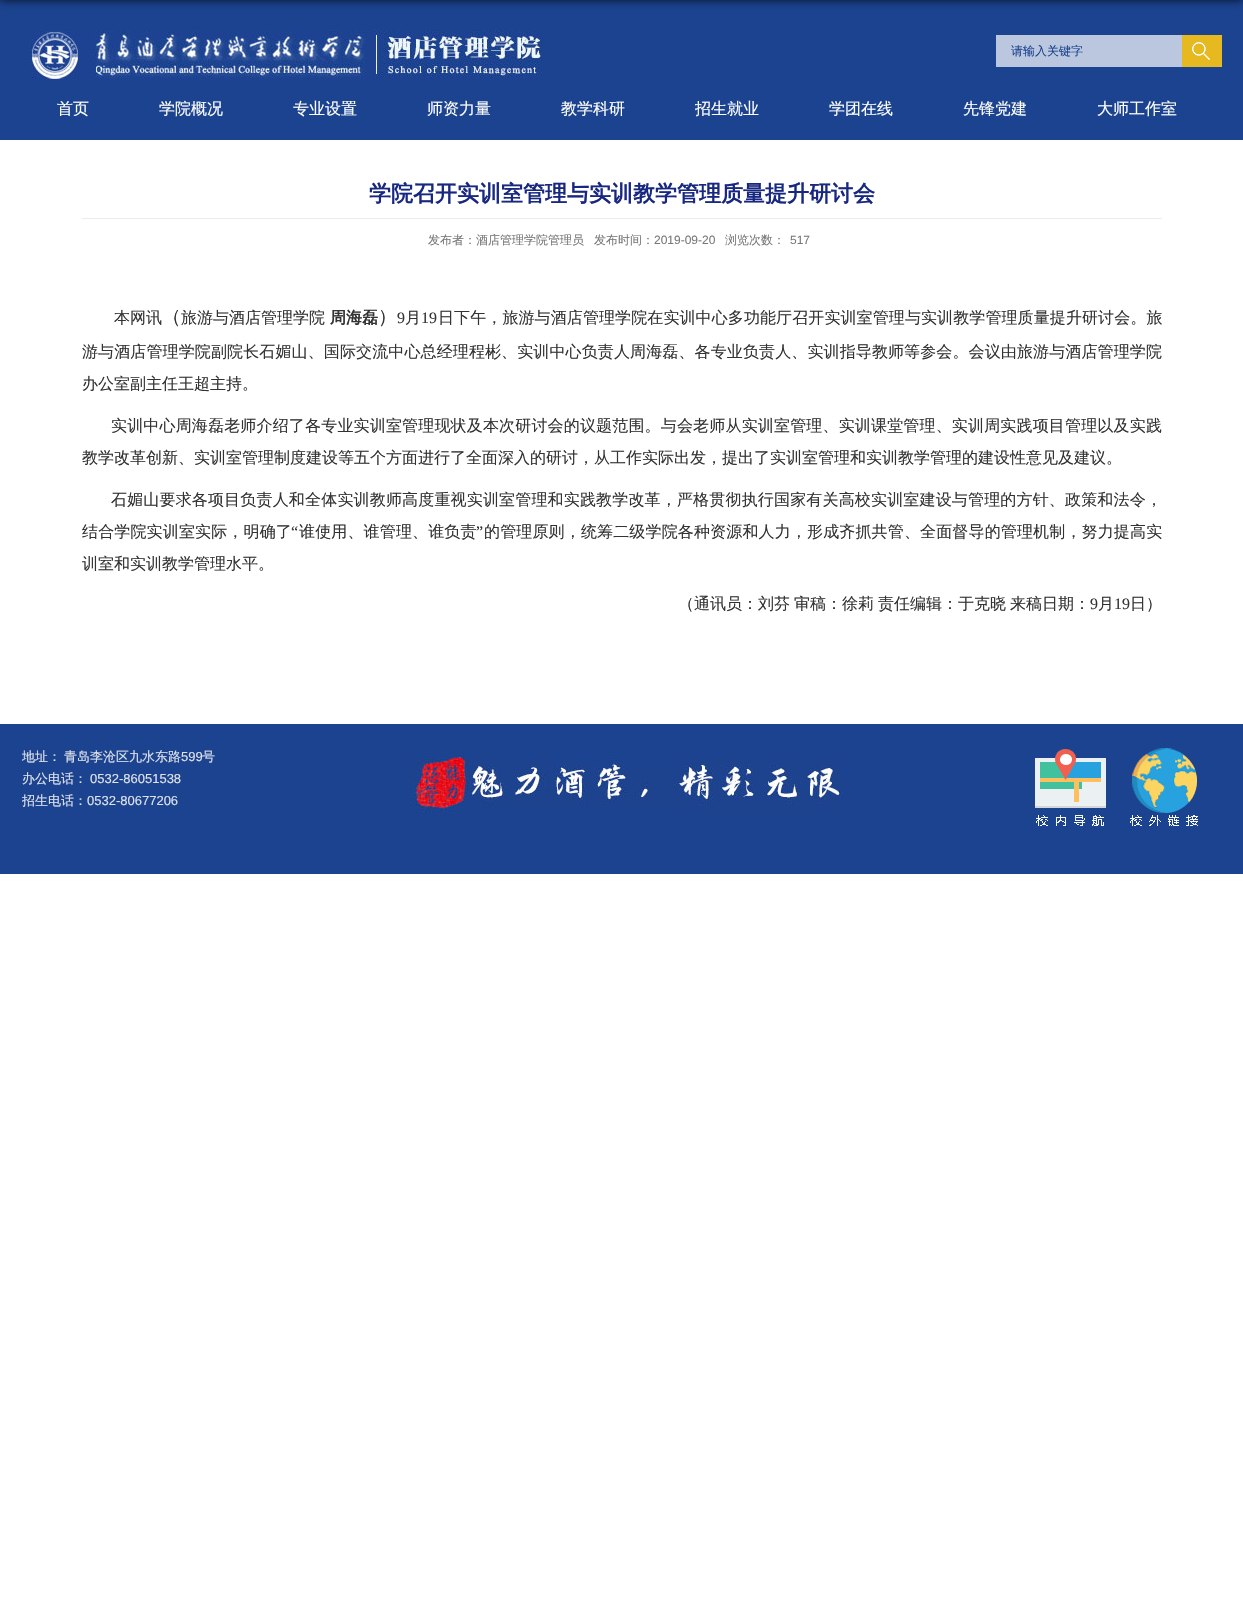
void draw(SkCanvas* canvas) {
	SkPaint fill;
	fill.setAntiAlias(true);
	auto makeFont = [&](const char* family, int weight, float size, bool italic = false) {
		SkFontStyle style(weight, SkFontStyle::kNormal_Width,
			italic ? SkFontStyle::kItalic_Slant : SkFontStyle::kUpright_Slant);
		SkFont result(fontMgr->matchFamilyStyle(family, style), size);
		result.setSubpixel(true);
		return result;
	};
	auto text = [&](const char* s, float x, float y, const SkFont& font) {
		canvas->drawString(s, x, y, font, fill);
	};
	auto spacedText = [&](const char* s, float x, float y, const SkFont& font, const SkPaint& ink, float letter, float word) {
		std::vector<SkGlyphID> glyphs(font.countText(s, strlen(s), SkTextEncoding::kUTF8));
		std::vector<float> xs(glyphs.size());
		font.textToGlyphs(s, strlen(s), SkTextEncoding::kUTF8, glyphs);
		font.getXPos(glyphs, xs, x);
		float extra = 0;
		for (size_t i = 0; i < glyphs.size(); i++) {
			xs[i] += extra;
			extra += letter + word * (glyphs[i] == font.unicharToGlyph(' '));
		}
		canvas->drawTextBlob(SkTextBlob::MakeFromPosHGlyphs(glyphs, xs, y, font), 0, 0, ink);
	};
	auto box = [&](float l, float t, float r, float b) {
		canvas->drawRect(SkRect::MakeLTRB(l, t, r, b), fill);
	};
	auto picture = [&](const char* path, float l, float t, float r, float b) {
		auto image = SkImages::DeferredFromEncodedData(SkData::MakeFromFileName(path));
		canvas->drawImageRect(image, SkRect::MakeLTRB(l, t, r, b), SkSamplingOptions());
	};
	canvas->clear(0xFFFFFFFF);
	fill.setColor(0xFF1B438F);
	box(0, 0, 1243, 140);
	fill.setColor(0xCC000000);
	fill.setMaskFilter(SkMaskFilter::MakeBlur(kNormal_SkBlurStyle, 5));
	canvas->drawRect(SkRect::MakeLTRB(0, -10, 1243, 0), fill);
	fill.setMaskFilter(nullptr);
	picture("image0.png", 30, 30, 542, 81);
	fill.setColor(0xFFBBC7DE);
	box(996, 35, 1182, 67);
	fill.setColor(0xFFE5B91F);
	box(1182, 35, 1222, 67);
	picture("image1.png", 1192, 42, 1210, 60);
	fill.setColor(0xFFECECEC);
	box(82, 218, 1162, 219);
	fill.setColor(0xFF1B438F);
	box(0, 724, 1243, 874);
	picture("image2.png", 410, 757, 842, 813);
	picture("image3.png", 1035, 748, 1198, 826);
	auto font1 = makeFont("WenQuanYi Zen Hei", 500, 12);
	text("请输入关键字", 1011, 55, font1);
	auto font2 = makeFont("WenQuanYi Zen Hei", 500, 16);
	fill.setColor(0xFFFFFFFF);
	text("首页", 57, 114, font2);
	text("学院概况", 159, 114, font2);
	text("专业设置", 293, 114, font2);
	text("师资力量", 427, 114, font2);
	text("教学科研", 561, 114, font2);
	text("招生就业", 695, 114, font2);
	text("学团在线", 829, 114, font2);
	text("先锋党建", 963, 114, font2);
	text("大师工作室", 1097, 114, font2);
	auto font3 = makeFont("WenQuanYi Zen Hei", 700, 22);
	fill.setColor(0xFF182880);
	text("学院召开实训室管理与实训教学管理质量提升研讨会", 369, 201, font3);
	fill.setColor(0xFF787878);
	text("发布者：酒店管理学院管理员", 428, 244, font1);
	text("发布时间：", 594, 244, font1);
	auto font4 = makeFont("Liberation Sans", 400, 12);
	text("2019-09-20", 654, 244, font4);
	text("浏览次数：", 725, 244, font1);
	text("517", 790, 244, font4);
	fill.setColor(0xFF333333);
	text("本网讯", 114, 323, font2);
	auto font5 = makeFont("WenQuanYi Zen Hei", 500, 19);
	text("（", 162, 323, font5);
	text("旅游与酒店管理学院", 181, 323, font2);
	auto font6 = makeFont("WenQuanYi Zen Hei", 700, 16);
	text("周海磊", 330, 323, font6);
	text("）", 378, 323, font5);
	auto font7 = makeFont("Liberation Serif", 400, 16);
	spacedText("9", 397, 323, font7, fill, 0.1f, 0);
	spacedText("月", 405, 323, font2, fill, 0.1f, 0);
	spacedText("19", 421, 323, font7, fill, 0.1f, 0);
	spacedText("日下午，旅游与酒店管理学院在实训中心多功能厅召开实训室管理与实训教学管理质量提升研讨会。旅", 438, 323, font2, fill, 0.1f, 0);
	spacedText("游与酒店管理学院副院长石媚山、国际交流中心总经理程彬、实训中心负责人周海磊、各专业负责人、实训指导教师等参会。会议由旅游与酒店管理学院", 82, 357, font2, fill, 0.12f, 0);
	text("办公室副主任王超主持。", 82, 389, font2);
	spacedText("实训中心周海磊老师介绍了各专业实训室管理现状及本次研讨会的议题范围。与会老师从实训室管理、实训课堂管理、实训周实践项目管理以及实践", 111, 431, font2, fill, 0.17f, 0);
	text("教学改革创新、实训室管理制度建设等五个方面进行了全面深入的研讨，从工作实际出发，提出了实训室管理和实训教学管理的建设性意见及建议。", 82, 463, font2);
	spacedText("石媚山要求各项目负责人和全体实训教师高度重视实训室管理和实践教学改革，严格贯彻执行国家有关高校实训室建设与管理的方针、政策和法令，", 111, 505, font2, fill, 0.17f, 0);
	spacedText("结合学院实训室实际，明确了", 82, 537, font2, fill, 0.15f, 0);
	spacedText("“", 291, 537, font7, fill, 0.15f, 0);
	spacedText("谁使用、谁管理、谁负责", 299, 537, font2, fill, 0.15f, 0);
	spacedText("”", 476, 537, font7, fill, 0.15f, 0);
	spacedText("的管理原则，统筹二级学院各种资源和人力，形成齐抓共管、全面督导的管理机制，努力提高实", 484, 537, font2, fill, 0.15f, 0);
	text("训室和实训教学管理水平。", 82, 569, font2);
	text("（通讯员：刘芬", 678, 609, font2);
	text("审稿：徐莉", 794, 609, font2);
	text("责任编辑：于克晓", 878, 609, font2);
	text("来稿日期：", 1010, 609, font2);
	text("9", 1090, 609, font7);
	text("月", 1098, 609, font2);
	text("19", 1114, 609, font7);
	text("日）", 1130, 609, font2);
	canvas->save();
	canvas->clipRect(SkRect::MakeLTRB(22, 734, 218, 824));
	auto font8 = makeFont("WenQuanYi Zen Hei", 500, 13);
	fill.setColor(0xFFDFE2EB);
	text("地址：", 22, 761, font8);
	canvas->restore();
	text("青岛李沧区九水东路", 64, 761, font8);
	auto font9 = makeFont("Liberation Sans", 400, 13);
	text("599", 181, 761, font9);
	text("号", 202, 761, font8);
	text("办公电话：", 22, 783, font8);
	text("0532-86051538", 90, 783, font9);
	canvas->save();
	canvas->clipRect(SkRect::MakeLTRB(22, 734, 218, 824));
	text("招生电话：", 22, 805, font8);
	canvas->restore();
	text("0532-80677206", 87, 805, font9);
}
